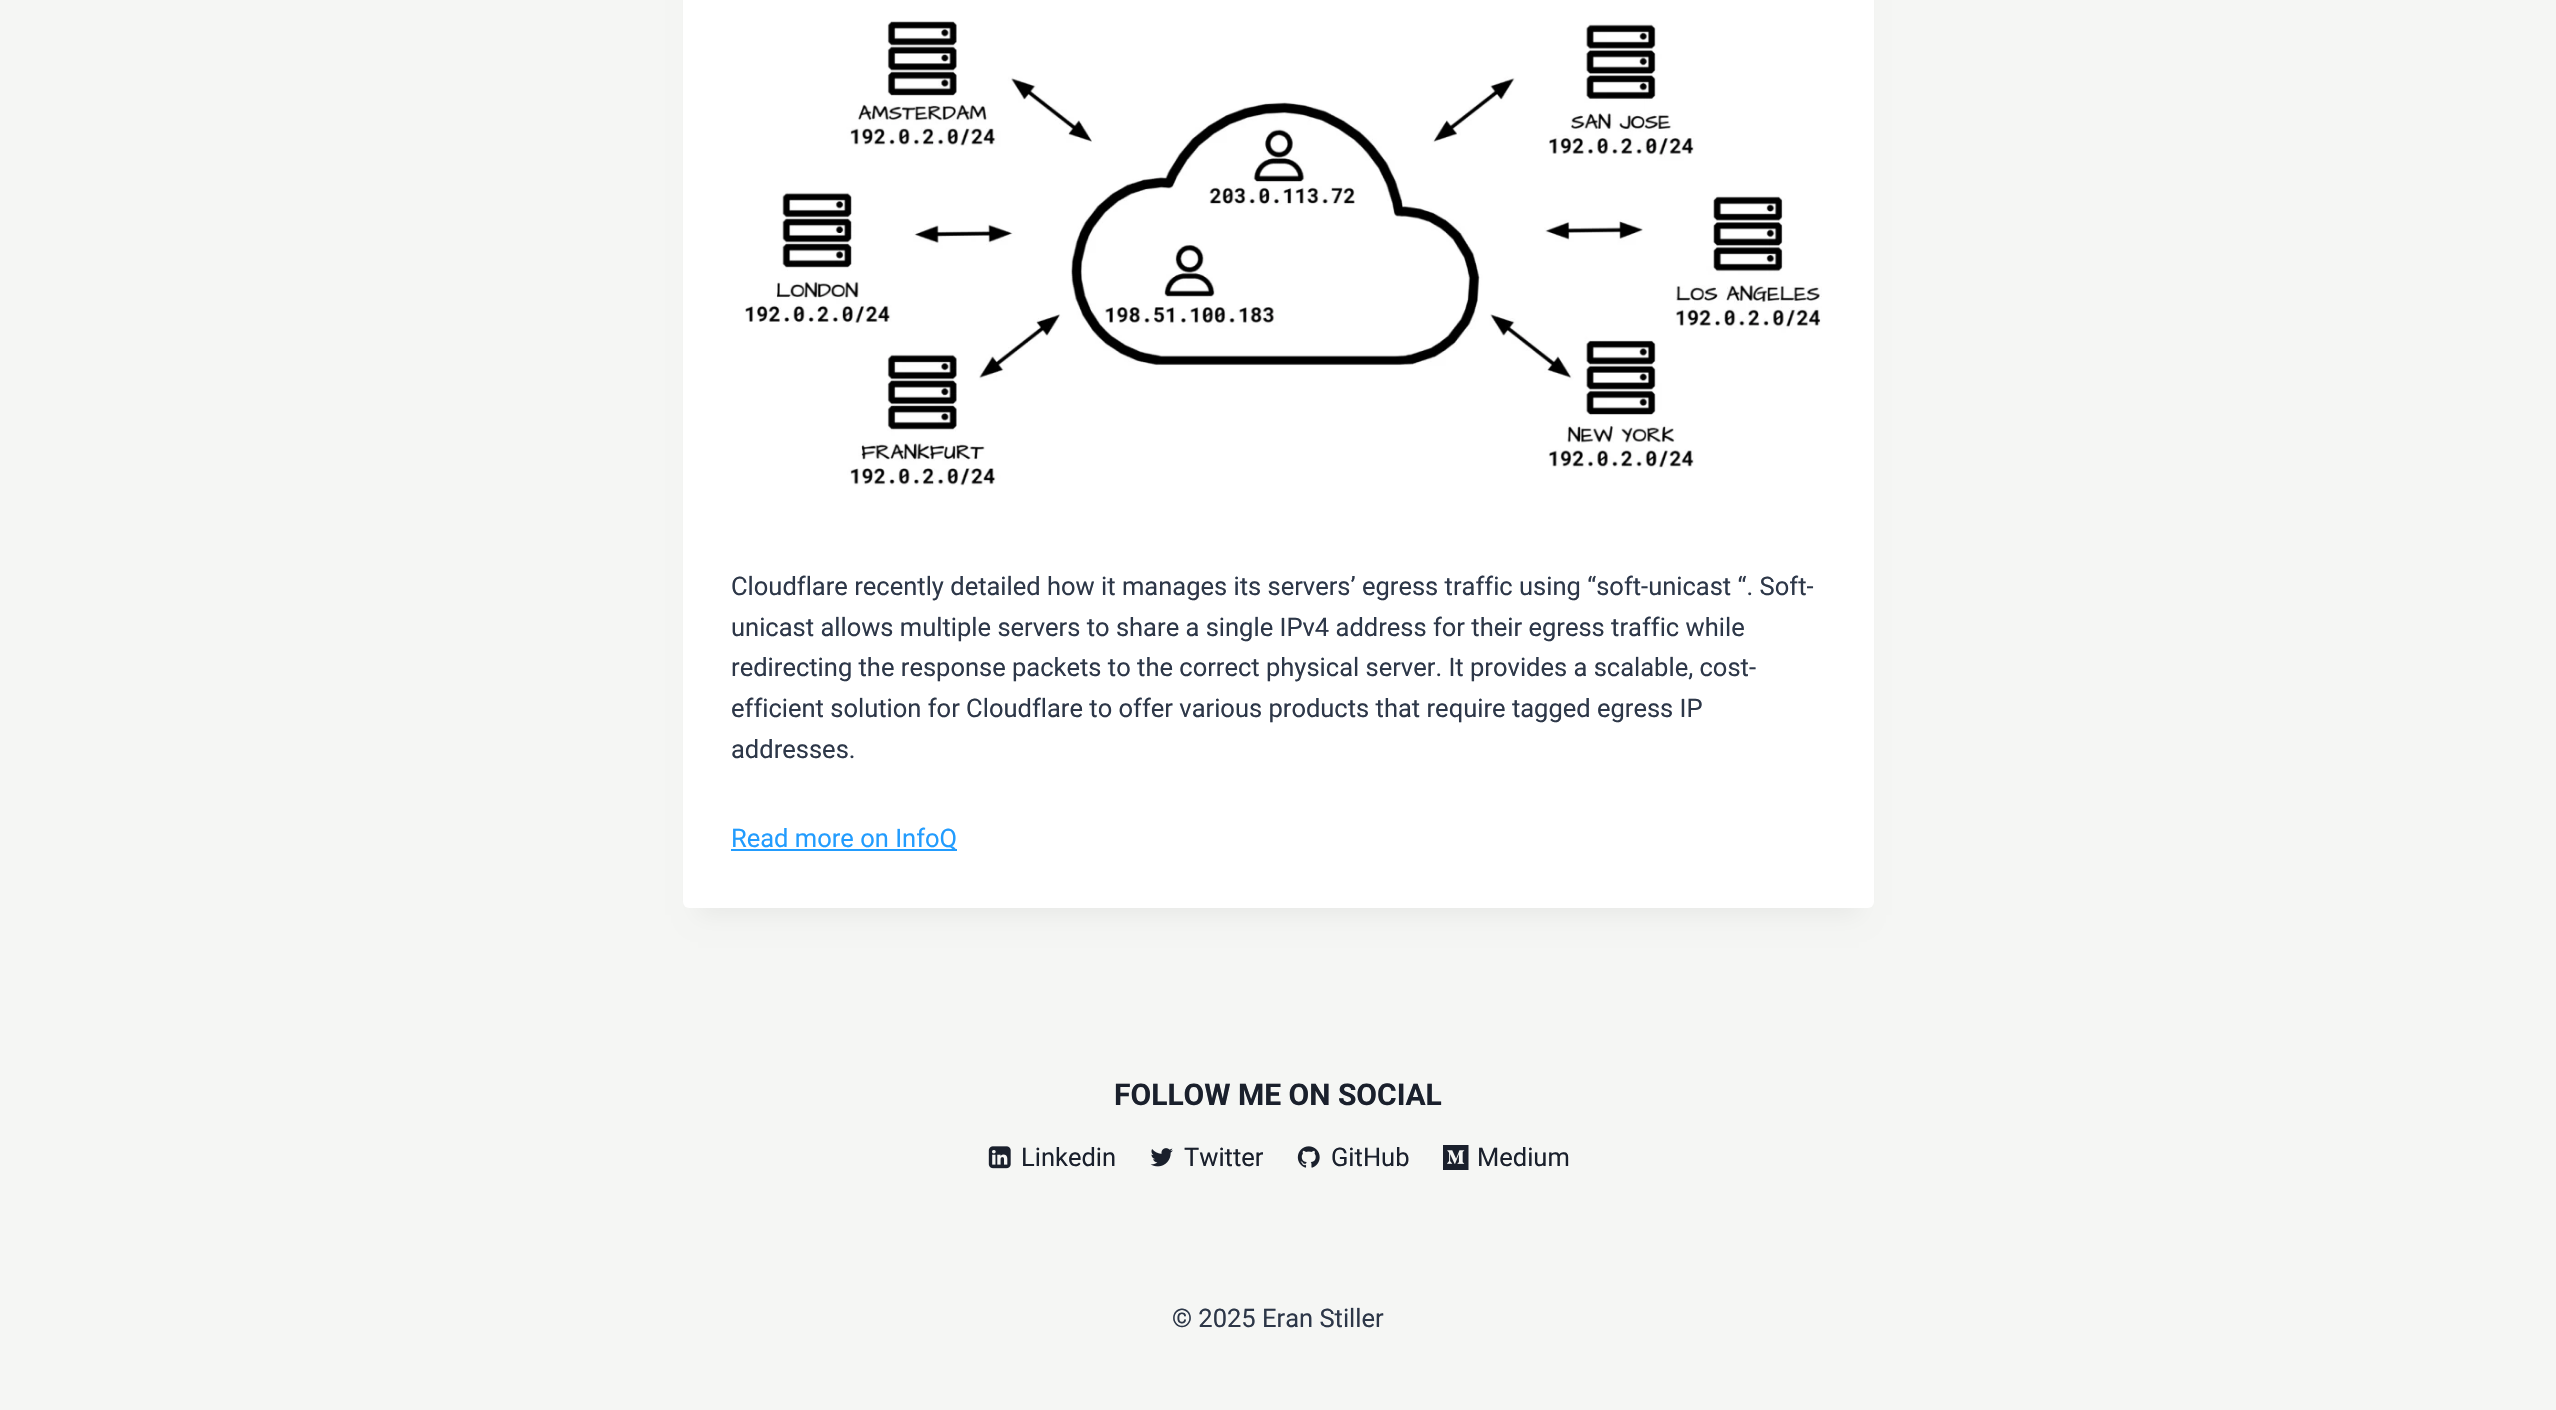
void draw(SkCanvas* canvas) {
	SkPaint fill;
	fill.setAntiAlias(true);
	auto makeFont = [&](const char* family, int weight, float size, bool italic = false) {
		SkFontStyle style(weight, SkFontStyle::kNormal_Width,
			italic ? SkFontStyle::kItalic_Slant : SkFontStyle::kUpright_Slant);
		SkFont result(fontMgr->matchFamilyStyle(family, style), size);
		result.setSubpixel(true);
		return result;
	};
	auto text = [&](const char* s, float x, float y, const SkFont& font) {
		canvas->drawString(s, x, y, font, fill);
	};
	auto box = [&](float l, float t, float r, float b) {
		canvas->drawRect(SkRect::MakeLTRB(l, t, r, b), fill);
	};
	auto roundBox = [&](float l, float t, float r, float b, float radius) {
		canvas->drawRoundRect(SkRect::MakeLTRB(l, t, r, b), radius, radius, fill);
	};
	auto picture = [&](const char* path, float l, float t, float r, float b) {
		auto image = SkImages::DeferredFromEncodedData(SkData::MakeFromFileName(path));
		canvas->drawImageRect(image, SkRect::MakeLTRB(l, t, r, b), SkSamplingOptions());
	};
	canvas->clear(0xFFF5F6F4);
	fill.setColor(0x0D000000);
	fill.setMaskFilter(SkMaskFilter::MakeBlur(kNormal_SkBlurStyle, 11));
	canvas->drawRect(SkRect::MakeLTRB(698, -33, 1859, 915), fill);
	fill.setMaskFilter(nullptr);
	fill.setColor(0xFFFFFFFF);
	roundBox(683, -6, 1874, 908, 6);
	picture("image0.png", 745, 21, 1822, 486);
	fill.setColor(0xFF229CFE);
	box(731, 849, 957, 851);
	picture("image1.png", 988, 1146, 1011, 1169);
	picture("image2.png", 1150, 1148, 1173, 1167);
	picture("image3.png", 1297, 1146, 1320, 1168);
	picture("image4.png", 1443, 1145, 1469, 1170);
	auto font1 = makeFont("Roboto", 400, 25.5f);
	fill.setColor(0xFF2D3748);
	text("Cloudflare recently detailed how it manages its servers’ egress traffic using “soft-unicast “. Soft-", 731, 595, font1);
	text("unicast allows multiple servers to share a single IPv4 address for their egress traffic while", 731, 636, font1);
	text("redirecting the response packets to the correct physical server. It provides a scalable, cost-", 731, 676, font1);
	text("efficient solution for Cloudflare to offer various products that require tagged egress IP", 731, 717, font1);
	text("addresses.", 731, 758, font1);
	fill.setColor(0xFF229CFE);
	text("Read more on InfoQ", 731, 847, font1);
	auto font2 = makeFont("Roboto", 700, 30);
	fill.setColor(0xFF1A202C);
	text("FOLLOW ME ON SOCIAL", 1114, 1105, font2);
	text("Linkedin", 1021, 1166, font1);
	text("Twitter", 1184, 1166, font1);
	text("GitHub", 1331, 1166, font1);
	text("Medium", 1477, 1166, font1);
	fill.setColor(0xFF2D3748);
	text("© 2025 Eran Stiller", 1172, 1327, font1);
}
